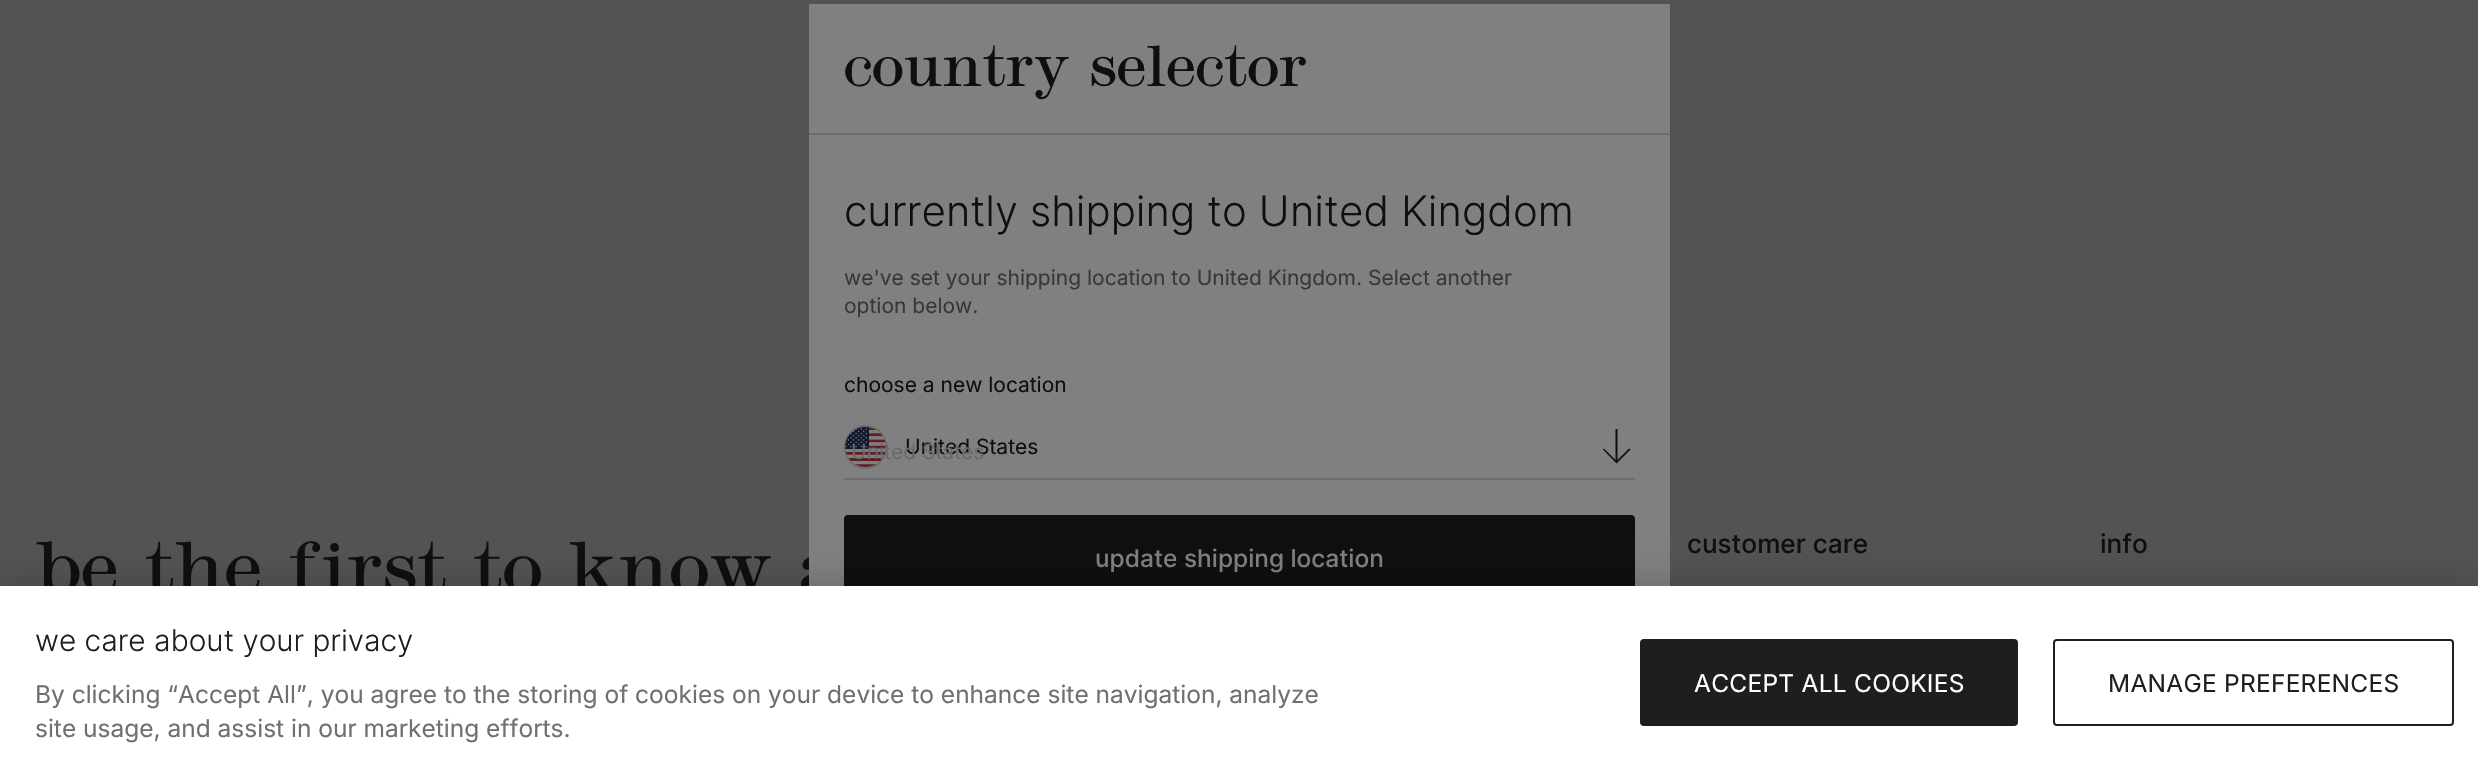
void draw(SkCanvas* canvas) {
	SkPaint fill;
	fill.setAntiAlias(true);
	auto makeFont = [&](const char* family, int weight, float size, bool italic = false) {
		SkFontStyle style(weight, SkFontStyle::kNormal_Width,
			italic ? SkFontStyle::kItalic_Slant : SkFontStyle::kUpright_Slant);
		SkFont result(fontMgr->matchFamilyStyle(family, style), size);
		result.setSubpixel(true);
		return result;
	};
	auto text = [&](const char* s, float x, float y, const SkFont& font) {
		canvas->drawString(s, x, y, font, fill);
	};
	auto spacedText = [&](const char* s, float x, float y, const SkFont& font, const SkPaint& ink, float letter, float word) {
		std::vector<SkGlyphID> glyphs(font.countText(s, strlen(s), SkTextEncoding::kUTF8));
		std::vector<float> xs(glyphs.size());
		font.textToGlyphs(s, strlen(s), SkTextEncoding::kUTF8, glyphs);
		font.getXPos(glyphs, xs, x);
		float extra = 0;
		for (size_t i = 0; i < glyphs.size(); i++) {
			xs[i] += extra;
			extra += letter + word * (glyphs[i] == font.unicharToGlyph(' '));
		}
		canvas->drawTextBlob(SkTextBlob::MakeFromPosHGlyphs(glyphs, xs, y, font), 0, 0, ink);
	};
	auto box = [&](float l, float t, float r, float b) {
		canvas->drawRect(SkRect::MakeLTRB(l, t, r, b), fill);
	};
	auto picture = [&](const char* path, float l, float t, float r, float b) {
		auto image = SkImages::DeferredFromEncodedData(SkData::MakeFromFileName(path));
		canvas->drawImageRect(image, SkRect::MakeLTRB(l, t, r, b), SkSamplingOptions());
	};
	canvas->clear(0xFF535353);
	auto font1 = makeFont("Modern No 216", 300, 66.5f);
	fill.setColor(0xFF0F0F0F);
	text("be the first to know a", 35, 593, font1);
	fill.setColor(0xFF808080);
	box(809, 4, 1670, 586);
	fill.setColor(0xFF6D6D6D);
	box(809, 133, 1670, 135);
	auto font2 = makeFont("Modern No 216", 300, 52.5f);
	fill.setColor(0xFF0F0F0F);
	text("country selector", 844, 86, font2);
	auto font3 = makeFont("Inter", 300, 42);
	text("currently shipping to United Kingdom", 844, 226, font3);
	auto font4 = makeFont("Inter", 400, 21);
	fill.setColor(0xFF383838);
	text("we've set your shipping location to United Kingdom. Select another", 844, 285, font4);
	text("option below.", 844, 313, font4);
	fill.setColor(0xFF0F0F0F);
	text("choose a new location", 844, 392, font4);
	fill.setColor(0xFF6D6D6D);
	box(844, 478, 1635, 480);
	fill.setStyle(SkPaint::kStroke_Style);
	fill.setStrokeWidth(2);
	canvas->drawRoundRect(SkRect::MakeLTRB(845, 426, 886, 468), 20.5f, 20.5f, fill);
	picture("image0.png", 845, 427, 886, 467);
	fill.setStyle(SkPaint::kFill_Style);
	fill.setColor(0xFF0F0F0F);
	text("United States", 905, 454, font4);
	canvas->drawPath(SkPathBuilder().moveTo(1630.5f, 449.5f).lineTo(1616.5f, 463.5f).lineTo(1603, 449.5f).lineTo(1604, 448.5f).lineTo(1615.5f, 460).lineTo(1615.5f, 429).lineTo(1617.5f, 429).lineTo(1617.5f, 460).lineTo(1629, 448.5f).close().detach(), fill);
	fill.setColor(0xFF6D696A);
	text("United States", 851, 459, font4);
	fill.setColor(0xFF0F0F0F);
	canvas->drawRoundRect(SkRect::MakeLTRB(845, 516, 1634, 601), 3, 3, fill);
	fill.setStyle(SkPaint::kStroke_Style);
	canvas->drawRoundRect(SkRect::MakeLTRB(845, 516, 1634, 601), 3, 3, fill);
	auto font5 = makeFont("Inter", 500, 24.5f);
	fill.setStyle(SkPaint::kFill_Style);
	fill.setColor(0xFF808080);
	text("update shipping location", 1095, 567, font5);
	auto font6 = makeFont("Inter", 500, 26.25f);
	fill.setColor(0xFF0F0F0F);
	text("customer care", 1687, 553, font6);
	text("info", 2100, 553, font6);
	fill.setColor(0x33000000);
	fill.setMaskFilter(SkMaskFilter::MakeBlur(kNormal_SkBlurStyle, 16));
	canvas->drawRect(SkRect::MakeLTRB(0, 586, 2478, 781), fill);
	fill.setMaskFilter(nullptr);
	fill.setColor(0xFFFFFFFF);
	box(0, 586, 2478, 780);
	auto font7 = makeFont("Inter", 300, 29.75f);
	fill.setColor(0xFF1E1E1E);
	text("we care about your privacy", 35, 651, font7);
	auto font8 = makeFont("Inter", 400, 24.5f);
	fill.setColor(0xFF707070);
	text("By clicking “Accept All”, you agree to the storing of cookies on your device to enhance site navigation, analyze", 35, 703, font8);
	text("site usage, and assist in our marketing efforts.", 35, 737, font8);
	fill.setColor(0xFF1E1E1E);
	canvas->drawRoundRect(SkRect::MakeLTRB(1641, 640, 2017, 725), 3, 3, fill);
	fill.setStyle(SkPaint::kStroke_Style);
	canvas->drawRoundRect(SkRect::MakeLTRB(1641, 640, 2017, 725), 3, 3, fill);
	fill.setStyle(SkPaint::kFill_Style);
	fill.setColor(0xFFFFFFFF);
	spacedText("ACCEPT ALL COOKIES", 1694, 692, font8, fill, 0.25f, 0);
	fill.setStyle(SkPaint::kStroke_Style);
	fill.setColor(0xFF1E1E1E);
	canvas->drawRoundRect(SkRect::MakeLTRB(2054, 640, 2453, 725), 3, 3, fill);
	fill.setStyle(SkPaint::kFill_Style);
	spacedText("MANAGE PREFERENCES", 2108, 692, font8, fill, 0.25f, 0);
}
